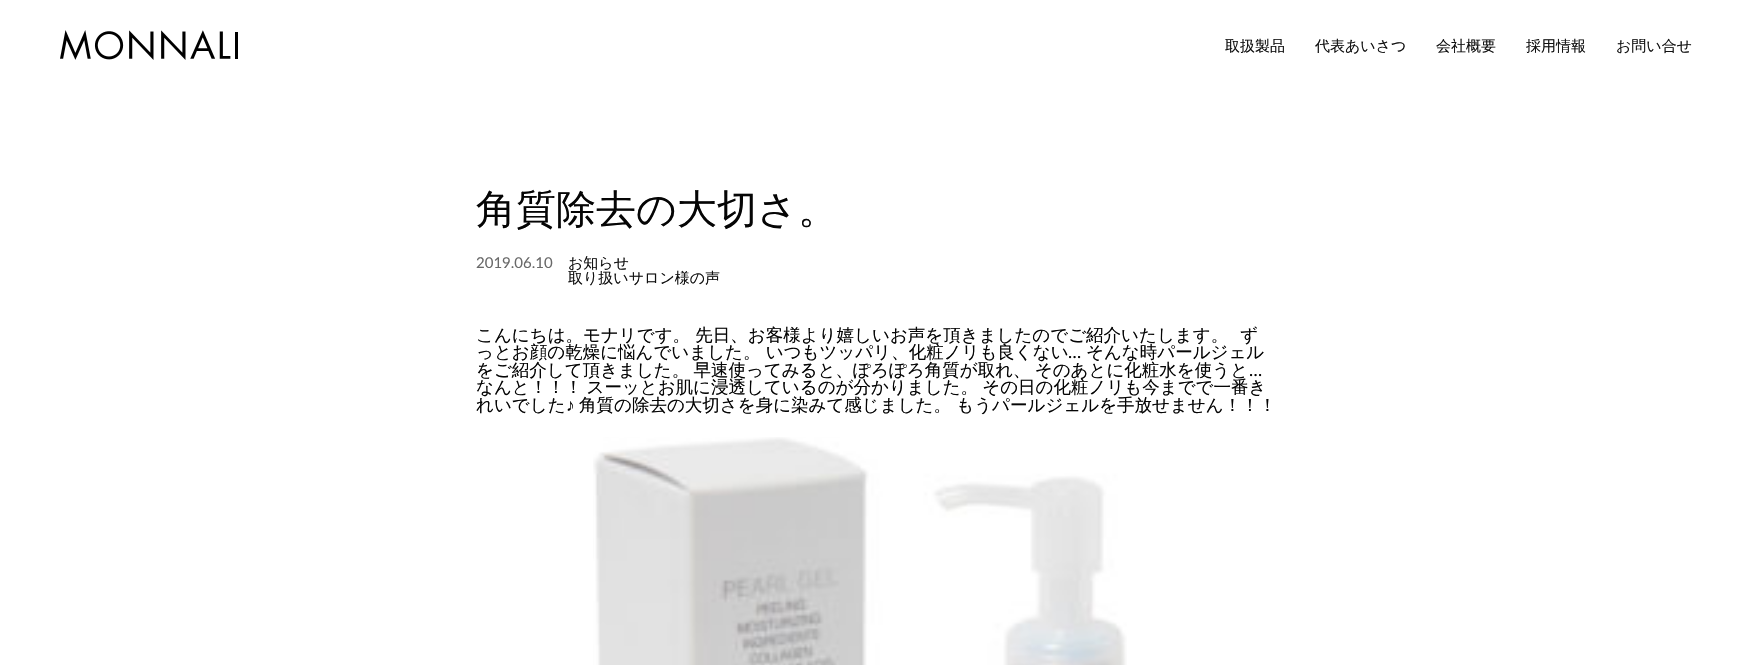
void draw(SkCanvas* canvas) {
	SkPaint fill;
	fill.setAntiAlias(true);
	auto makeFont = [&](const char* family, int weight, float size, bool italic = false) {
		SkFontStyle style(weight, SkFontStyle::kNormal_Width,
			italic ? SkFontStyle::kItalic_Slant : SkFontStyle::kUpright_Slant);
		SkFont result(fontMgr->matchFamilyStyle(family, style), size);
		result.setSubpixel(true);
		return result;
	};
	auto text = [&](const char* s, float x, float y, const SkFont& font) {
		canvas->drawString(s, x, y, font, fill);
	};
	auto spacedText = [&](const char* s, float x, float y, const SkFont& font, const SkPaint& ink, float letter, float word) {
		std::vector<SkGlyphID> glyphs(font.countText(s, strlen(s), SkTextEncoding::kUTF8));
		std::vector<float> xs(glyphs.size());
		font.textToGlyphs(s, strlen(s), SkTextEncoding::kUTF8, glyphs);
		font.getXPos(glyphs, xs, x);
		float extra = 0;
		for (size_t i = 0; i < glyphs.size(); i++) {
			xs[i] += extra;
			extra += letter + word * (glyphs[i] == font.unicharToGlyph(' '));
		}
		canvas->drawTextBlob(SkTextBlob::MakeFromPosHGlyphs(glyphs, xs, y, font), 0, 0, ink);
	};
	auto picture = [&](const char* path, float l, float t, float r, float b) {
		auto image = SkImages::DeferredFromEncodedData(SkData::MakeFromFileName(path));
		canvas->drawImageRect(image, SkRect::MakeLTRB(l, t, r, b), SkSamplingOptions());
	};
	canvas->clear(0xFFFFFFFF);
	picture("image0.png", 60, 30, 238, 60);
	picture("image1.png", 593, 437, 1127, 665);
	auto font1 = makeFont("WenQuanYi Zen Hei", 500, 15);
	fill.setColor(0xFF111111);
	text("取扱製品", 1225, 51, font1);
	text("代表あいさつ", 1315, 51, font1);
	text("会社概要", 1436, 51, font1);
	text("採用情報", 1526, 51, font1);
	text("お問い合せ", 1616, 51, font1);
	auto font2 = makeFont("WenQuanYi Zen Hei", 500, 40);
	fill.setColor(0xFF050505);
	text("角質除去の大切さ。", 476, 223, font2);
	auto font3 = makeFont("Lato", 400, 15);
	fill.setColor(0xFF696969);
	text("2019.06.10", 476, 268, font3);
	fill.setColor(0xFF111111);
	text("お知らせ", 568, 268, font1);
	text("取り扱いサロン様の声", 568, 283, font1);
	auto font4 = makeFont("WenQuanYi Zen Hei", 500, 17.5f);
	fill.setColor(0xFF050505);
	text("こんにちは。モナリです。 先日、お客様より嬉しいお声を頂きましたのでご紹介いたします。", 476, 341, font4);
	text("ず", 1240, 341, font4);
	text("っとお顔の乾燥に悩んでいました。 いつもツッパリ、化粧ノリも良くない", 476, 358, font4);
	auto font5 = makeFont("Lato", 400, 17.5f);
	text("…", 1068, 358, font5);
	text("そんな時パールジェル", 1086, 358, font4);
	spacedText("をご紹介して頂きました。 早速使ってみると、ぽろぽろ角質が取れ、 そのあとに化粧水を使うと", 476, 376, font4, fill, 0, -1);
	text("…", 1249, 376, font5);
	spacedText("なんと！！！ スーッとお肌に浸透しているのが分かりました。 その日の化粧ノリも今までで一番き", 476, 393, font4, fill, 0, -1);
	text("れいでした", 476, 411, font4);
	auto font6 = makeFont("Liberation Sans", 400, 17.5f);
	text("♪", 566, 411, font6);
	text("角質の除去の大切さを身に染みて感じました。 もうパールジェルを手放せません！！！", 579, 411, font4);
}
